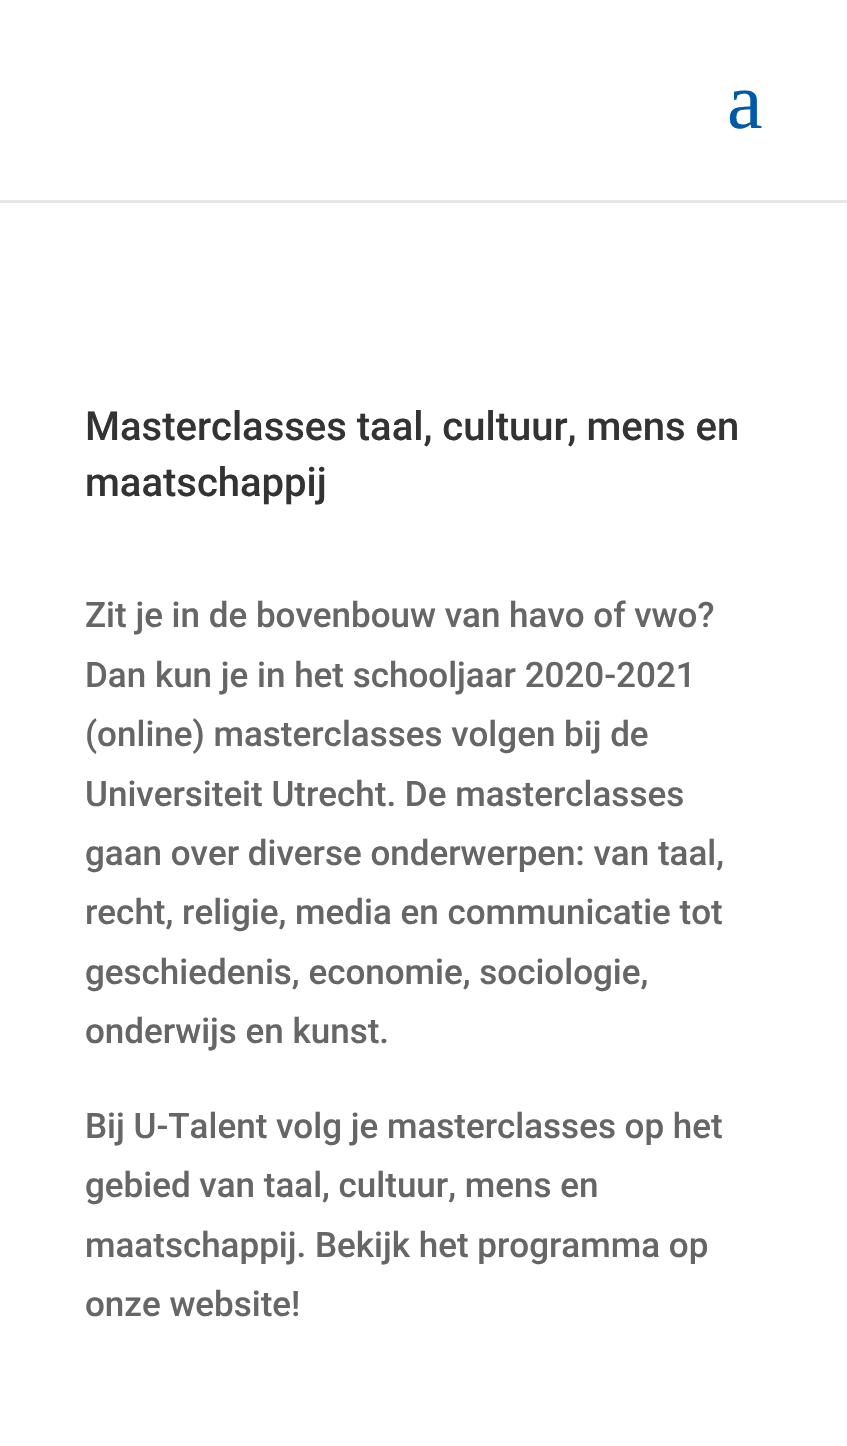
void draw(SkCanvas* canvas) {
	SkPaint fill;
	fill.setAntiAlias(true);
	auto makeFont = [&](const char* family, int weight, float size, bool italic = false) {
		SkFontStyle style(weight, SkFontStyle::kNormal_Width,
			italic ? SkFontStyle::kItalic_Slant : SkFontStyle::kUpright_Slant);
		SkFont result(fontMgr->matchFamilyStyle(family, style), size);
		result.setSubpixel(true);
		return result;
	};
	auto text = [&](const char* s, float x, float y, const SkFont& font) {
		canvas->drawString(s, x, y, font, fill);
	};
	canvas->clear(0xFFFFFFFF);
	fill.setColor(0xFFE6E6E6);
	canvas->drawPath(SkPathBuilder().moveTo(0, 200).lineTo(0, 203).lineTo(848, 203).lineTo(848, 3).lineTo(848, 200).close().detach(), fill);
	auto font1 = makeFont("Liberation Serif", 400, 80);
	fill.setColor(0xFF005AA7);
	text("a", 727, 128, font1);
	auto font2 = makeFont("Roboto", 500, 40);
	fill.setColor(0xFF333333);
	text("Masterclasses taal, cultuur, mens en", 85, 440, font2);
	text("maatschappij", 85, 496, font2);
	auto font3 = makeFont("Roboto", 500, 35);
	fill.setColor(0xFF666666);
	text("Zit je in de bovenbouw van havo of vwo?", 85, 627, font3);
	text("Dan kun je in het schooljaar 2020-2021", 85, 687, font3);
	text("(online) masterclasses volgen bij de", 85, 746, font3);
	text("Universiteit Utrecht. De masterclasses", 85, 806, font3);
	text("gaan over diverse onderwerpen: van taal,", 85, 865, font3);
	text("recht, religie, media en communicatie tot", 85, 924, font3);
	text("geschiedenis, economie, sociologie,", 85, 984, font3);
	text("onderwijs en kunst.", 85, 1043, font3);
	text("Bij U-Talent volg je masterclasses op het", 85, 1138, font3);
	text("gebied van taal, cultuur, mens en", 85, 1197, font3);
	text("maatschappij. Bekijk het programma op", 85, 1257, font3);
	text("onze website!", 85, 1316, font3);
}
